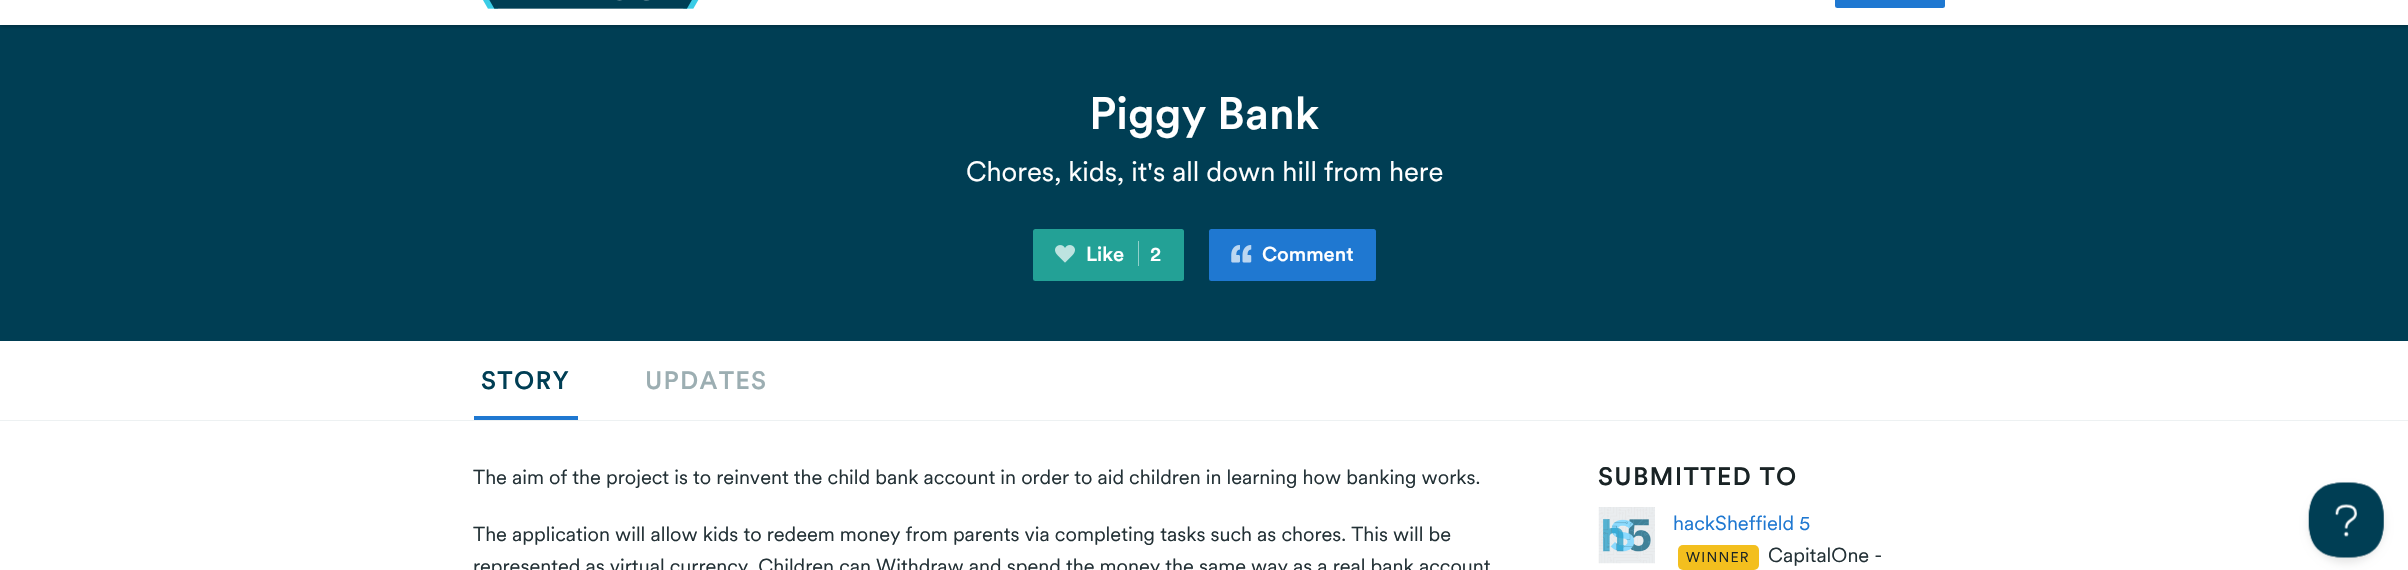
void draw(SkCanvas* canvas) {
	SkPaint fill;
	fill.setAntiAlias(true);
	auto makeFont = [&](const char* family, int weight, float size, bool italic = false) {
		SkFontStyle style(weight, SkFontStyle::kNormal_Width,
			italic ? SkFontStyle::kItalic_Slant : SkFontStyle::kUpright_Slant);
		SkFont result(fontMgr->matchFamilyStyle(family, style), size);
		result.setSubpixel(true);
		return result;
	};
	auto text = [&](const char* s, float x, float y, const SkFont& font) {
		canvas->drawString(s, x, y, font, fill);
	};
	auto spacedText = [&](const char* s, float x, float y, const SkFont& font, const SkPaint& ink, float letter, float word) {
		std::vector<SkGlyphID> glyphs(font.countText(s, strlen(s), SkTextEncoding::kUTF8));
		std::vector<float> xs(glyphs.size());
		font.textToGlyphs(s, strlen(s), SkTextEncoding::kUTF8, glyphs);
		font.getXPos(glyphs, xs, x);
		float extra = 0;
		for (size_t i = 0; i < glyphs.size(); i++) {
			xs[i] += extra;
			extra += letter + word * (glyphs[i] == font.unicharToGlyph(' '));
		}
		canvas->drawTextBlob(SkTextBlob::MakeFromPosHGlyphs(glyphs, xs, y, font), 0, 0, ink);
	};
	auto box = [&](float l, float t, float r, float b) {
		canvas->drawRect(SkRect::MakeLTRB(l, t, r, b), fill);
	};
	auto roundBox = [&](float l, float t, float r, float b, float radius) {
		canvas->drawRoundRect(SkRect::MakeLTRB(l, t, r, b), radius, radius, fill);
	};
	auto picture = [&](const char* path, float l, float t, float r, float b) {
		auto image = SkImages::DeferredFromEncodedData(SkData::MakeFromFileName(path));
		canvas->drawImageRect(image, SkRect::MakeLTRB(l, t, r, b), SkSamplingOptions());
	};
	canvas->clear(0xFFFFFFFF);
	fill.setColor(0xFF003E54);
	box(0, 25, 2408, 341);
	canvas->save();
	canvas->clipRect(SkRect::MakeLTRB(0, 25, 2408, 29));
	fill.setColor(0x4D000000);
	fill.setMaskFilter(SkMaskFilter::MakeBlur(kNormal_SkBlurStyle, 2));
	canvas->drawRect(SkRect::MakeLTRB(0, -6, 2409, 26), fill);
	fill.setMaskFilter(nullptr);
	canvas->restore();
	picture("image0.png", 483, 0, 699, 9);
	fill.setColor(0xFF1F78D1);
	roundBox(1835, -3, 1945, 8, 2.5f);
	fill.setColor(0xFF23A196);
	roundBox(1033, 229, 1184, 281, 2.5f);
	picture("image1.png", 1055, 245, 1075, 263);
	fill.setColor(0xFF91D0CB);
	box(1138, 241, 1139, 266);
	fill.setColor(0xFF1F78D1);
	roundBox(1209, 229, 1376, 281, 2.5f);
	picture("image2.png", 1231, 245, 1252, 263);
	fill.setColor(0xFFEDF1F2);
	box(0, 420, 2408, 421);
	fill.setColor(0xFF1F78D1);
	box(474, 416, 578, 420);
	picture("image3.png", 1598, 507, 1655, 564);
	fill.setColor(0xFFF3BF1E);
	roundBox(1678, 545, 1759, 570, 5);
	fill.setColor(0x1A000000);
	fill.setMaskFilter(SkMaskFilter::MakeBlur(kNormal_SkBlurStyle, 4.5f));
	canvas->drawRoundRect(SkRect::MakeLTRB(2309, 488, 2384, 563), 37.5f, 37.5f, fill);
	fill.setMaskFilter(nullptr);
	picture("image4.png", 2308, 482, 2384, 558);
	auto font1 = makeFont("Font", 500, 45);
	fill.setColor(0xFFFFFFFF);
	text("Piggy Bank", 1089, 129, font1);
	auto font2 = makeFont("Font", 400, 27.5f);
	text("Chores, kids, it's all down hill from here", 966, 181, font2);
	auto font3 = makeFont("Font", 500, 20);
	text("Like", 1086, 261, font3);
	text("2", 1150, 261, font3);
	text("Comment", 1262, 261, font3);
	auto font4 = makeFont("Font", 500, 25);
	fill.setColor(0xFF003E54);
	spacedText("STORY", 481, 389, font4, fill, 1.25f, 0);
	fill.setColor(0xFF9CAEB2);
	spacedText("UPDATES", 645, 389, font4, fill, 1.25f, 0);
	auto font5 = makeFont("Font", 400, 20);
	fill.setColor(0xFF233136);
	text("The aim of the project is to reinvent the child bank account in order to aid children in learning how banking works.", 473, 484, font5);
	text("The application will allow kids to redeem money from parents via completing tasks such as chores. This will be", 473, 541, font5);
	text("represented as virtual currency. Children can Withdraw and spend the money the same way as a real bank account", 473, 573, font5);
	fill.setColor(0xFF192325);
	spacedText("SUBMITTED TO", 1598, 485, font4, fill, 1.25f, 0);
	fill.setColor(0xFF1F78D1);
	text("hackSheffield 5", 1673, 530, font5);
	auto font6 = makeFont("Font", 400, 14);
	fill.setColor(0xFF192325);
	spacedText("WINNER", 1686, 562, font6, fill, 1.25f, 0);
	fill.setColor(0xFF233136);
	text("CapitalOne -", 1768, 562, font5);
}
